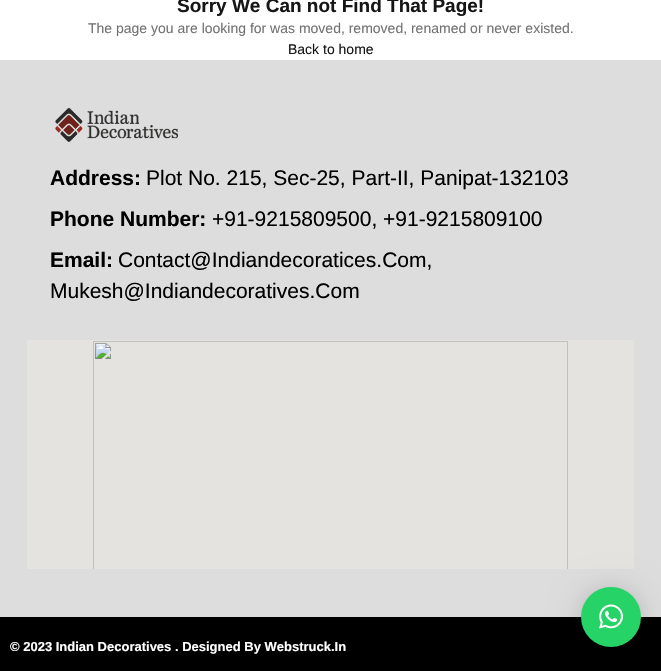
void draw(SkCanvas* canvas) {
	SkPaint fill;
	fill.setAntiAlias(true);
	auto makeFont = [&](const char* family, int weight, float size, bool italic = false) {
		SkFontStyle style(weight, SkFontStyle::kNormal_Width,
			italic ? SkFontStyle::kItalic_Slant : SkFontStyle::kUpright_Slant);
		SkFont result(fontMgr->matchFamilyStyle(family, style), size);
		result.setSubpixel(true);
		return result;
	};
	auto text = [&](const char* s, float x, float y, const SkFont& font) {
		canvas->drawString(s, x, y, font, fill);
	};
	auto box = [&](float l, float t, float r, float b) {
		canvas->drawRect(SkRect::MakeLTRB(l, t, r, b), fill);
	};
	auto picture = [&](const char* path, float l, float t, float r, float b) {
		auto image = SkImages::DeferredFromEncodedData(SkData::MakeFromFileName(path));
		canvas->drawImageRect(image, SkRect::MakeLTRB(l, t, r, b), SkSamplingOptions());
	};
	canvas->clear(0xFFFFFFFF);
	fill.setColor(0xFFDDDDDD);
	box(0, 60, 661, 617);
	picture("image0.png", 55, 108, 178, 142);
	picture("image1.png", 27, 340, 634, 569);
	fill.setColor(0xFF000000);
	box(0, 617, 661, 671);
	fill.setColor(0x29000000);
	fill.setMaskFilter(SkMaskFilter::MakeBlur(kNormal_SkBlurStyle, 16));
	canvas->drawRoundRect(SkRect::MakeLTRB(581, 589, 641, 649), 30, 30, fill);
	fill.setMaskFilter(nullptr);
	fill.setColor(0x0F000000);
	fill.setMaskFilter(SkMaskFilter::MakeBlur(kNormal_SkBlurStyle, 3));
	canvas->drawRoundRect(SkRect::MakeLTRB(581, 588, 641, 648), 30, 30, fill);
	fill.setMaskFilter(nullptr);
	fill.setColor(0xFF25D366);
	canvas->drawCircle(611, 617, 30, fill);
	picture("image2.png", 599, 604, 623, 629);
	auto font1 = makeFont("Liberation Sans", 700, 19);
	fill.setColor(0xFF161616);
	text("Sorry We Can not Find That Page!", 177, 12, font1);
	auto font2 = makeFont("Liberation Sans", 400, 14);
	fill.setColor(0xFF727272);
	text("The page you are looking for was moved, removed, renamed or never existed.", 88, 33, font2);
	fill.setColor(0xFF161616);
	text("Back to home", 288, 54, font2);
	auto font3 = makeFont("Liberation Sans", 700, 21);
	fill.setColor(0xFF000000);
	text("Address:", 50, 185, font3);
	auto font4 = makeFont("Liberation Sans", 400, 21);
	text("Plot No. 215, Sec-25, Part-II, Panipat-132103", 146, 185, font4);
	text("Phone Number:", 50, 226, font3);
	text("+91-9215809500, +91-9215809100", 212, 226, font4);
	text("Email:", 50, 267, font3);
	text("Contact@Indiandecoratices.Com,", 118, 267, font4);
	text("Mukesh@Indiandecoratives.Com", 50, 298, font4);
	auto font5 = makeFont("Liberation Sans", 700, 13);
	fill.setColor(0xFFFFFFFF);
	text("© 2023 Indian Decoratives . Designed By Webstruck.In", 10, 651, font5);
}
